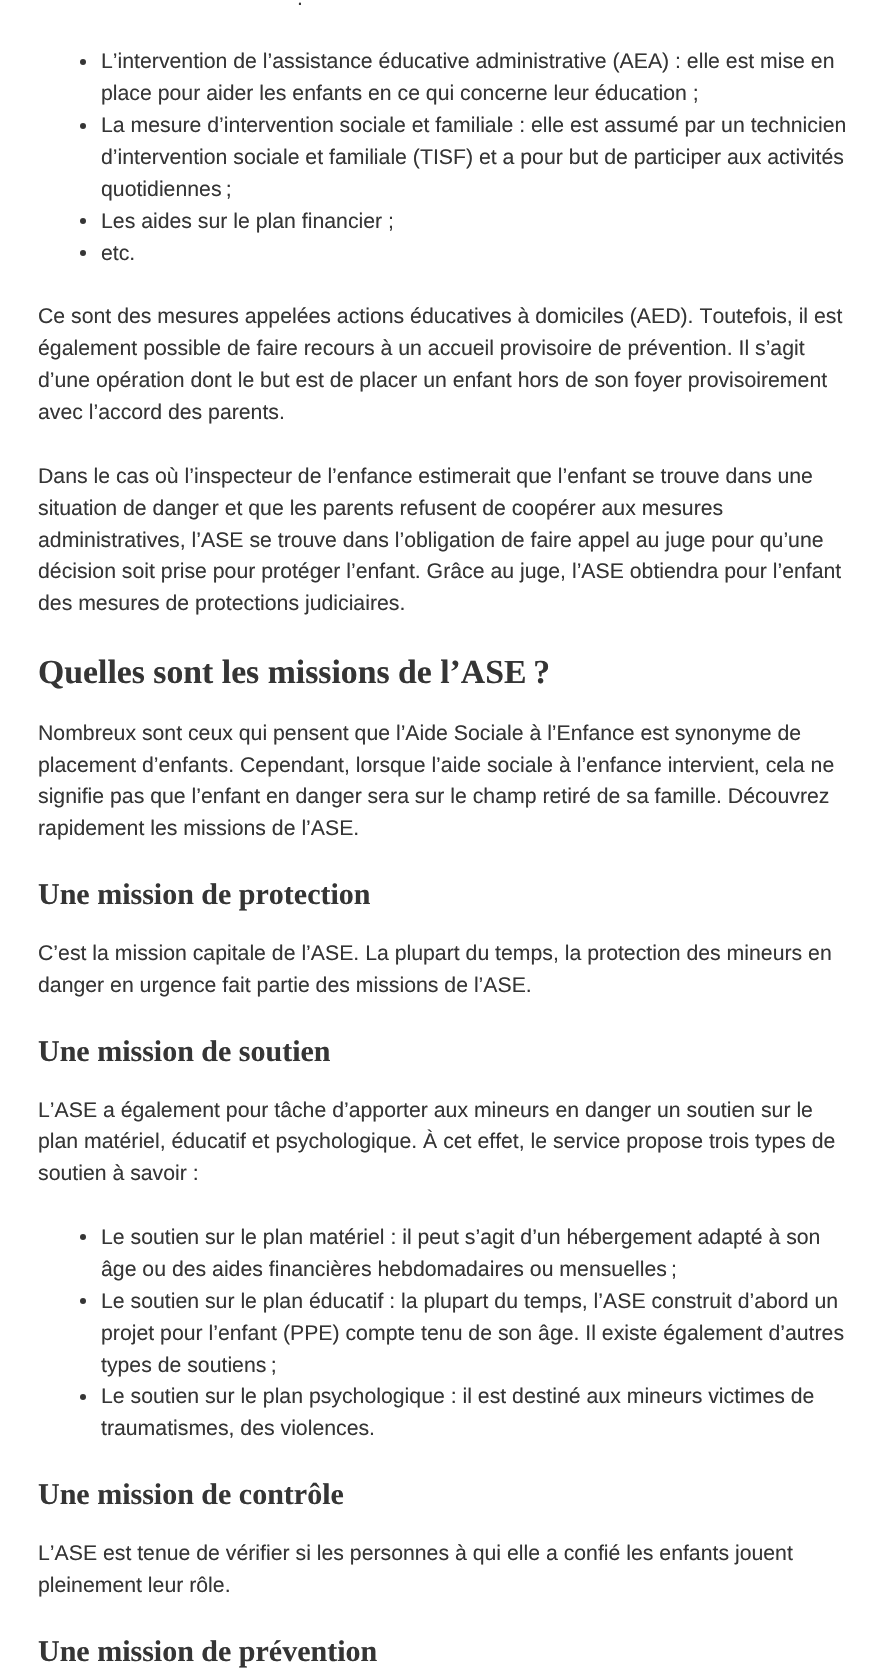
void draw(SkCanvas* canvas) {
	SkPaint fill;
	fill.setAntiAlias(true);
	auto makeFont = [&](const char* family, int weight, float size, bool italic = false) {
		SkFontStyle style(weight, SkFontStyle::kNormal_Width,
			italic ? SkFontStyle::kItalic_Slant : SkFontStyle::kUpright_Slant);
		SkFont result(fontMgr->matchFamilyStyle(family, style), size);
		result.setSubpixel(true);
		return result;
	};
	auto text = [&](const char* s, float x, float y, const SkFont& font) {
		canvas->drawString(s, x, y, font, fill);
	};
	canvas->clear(0xFFFFFFFF);
	fill.setColor(0xFF353535);
	canvas->drawCircle(83, 62, 3, fill);
	canvas->drawCircle(83, 126, 3, fill);
	canvas->drawCircle(83, 221, 3, fill);
	canvas->drawCircle(83, 253, 3, fill);
	canvas->drawCircle(83, 1237, 3, fill);
	canvas->drawCircle(83, 1301, 3, fill);
	canvas->drawCircle(83, 1397, 3, fill);
	auto font1 = makeFont("Liberation Sans", 400, 21.25f);
	text(".", 297, 5, font1);
	text("L’intervention de l’assistance éducative administrative (AEA) : elle est mise en", 101, 68, font1);
	text("place pour aider les enfants en ce qui concerne leur éducation ;", 101, 100, font1);
	text("La mesure d’intervention sociale et familiale : elle est assumé par un technicien", 101, 132, font1);
	text("d’intervention sociale et familiale (TISF) et a pour but de participer aux activités", 101, 164, font1);
	text("quotidiennes ;", 101, 196, font1);
	text("Les aides sur le plan financier ;", 101, 228, font1);
	text("etc.", 101, 260, font1);
	text("Ce sont des mesures appelées actions éducatives à domiciles (AED). Toutefois, il est", 38, 323, font1);
	text("également possible de faire recours à un accueil provisoire de prévention. Il s’agit", 38, 355, font1);
	text("d’une opération dont le but est de placer un enfant hors de son foyer provisoirement", 38, 387, font1);
	text("avec l’accord des parents.", 38, 419, font1);
	text("Dans le cas où l’inspecteur de l’enfance estimerait que l’enfant se trouve dans une", 38, 483, font1);
	text("situation de danger et que les parents refusent de coopérer aux mesures", 38, 515, font1);
	text("administratives, l’ASE se trouve dans l’obligation de faire appel au juge pour qu’une", 38, 547, font1);
	text("décision soit prise pour protéger l’enfant. Grâce au juge, l’ASE obtiendra pour l’enfant", 38, 578, font1);
	text("des mesures de protections judiciaires.", 38, 610, font1);
	auto font2 = makeFont("Liberation Serif", 700, 33.75f);
	text("Quelles sont les missions de l’ASE ?", 38, 683, font2);
	text("Nombreux sont ceux qui pensent que l’Aide Sociale à l’Enfance est synonyme de", 38, 740, font1);
	text("placement d’enfants. Cependant, lorsque l’aide sociale à l’enfance intervient, cela ne", 38, 772, font1);
	text("signifie pas que l’enfant en danger sera sur le champ retiré de sa famille. Découvrez", 38, 803, font1);
	text("rapidement les missions de l’ASE.", 38, 835, font1);
	auto font3 = makeFont("Liberation Serif", 700, 30);
	text("Une mission de protection", 38, 904, font3);
	text("C’est la mission capitale de l’ASE. La plupart du temps, la protection des mineurs en", 38, 960, font1);
	text("danger en urgence fait partie des missions de l’ASE.", 38, 992, font1);
	text("Une mission de soutien", 38, 1061, font3);
	text("L’ASE a également pour tâche d’apporter aux mineurs en danger un soutien sur le", 38, 1117, font1);
	text("plan matériel, éducatif et psychologique. À cet effet, le service propose trois types de", 38, 1148, font1);
	text("soutien à savoir :", 38, 1180, font1);
	text("Le soutien sur le plan matériel : il peut s’agit d’un hébergement adapté à son", 101, 1244, font1);
	text("âge ou des aides financières hebdomadaires ou mensuelles ;", 101, 1276, font1);
	text("Le soutien sur le plan éducatif : la plupart du temps, l’ASE construit d’abord un", 101, 1308, font1);
	text("projet pour l’enfant (PPE) compte tenu de son âge. Il existe également d’autres", 101, 1340, font1);
	text("types de soutiens ;", 101, 1372, font1);
	text("Le soutien sur le plan psychologique : il est destiné aux mineurs victimes de", 101, 1403, font1);
	text("traumatismes, des violences.", 101, 1435, font1);
	text("Une mission de contrôle", 38, 1504, font3);
	text("L’ASE est tenue de vérifier si les personnes à qui elle a confié les enfants jouent", 38, 1560, font1);
	text("pleinement leur rôle.", 38, 1592, font1);
	text("Une mission de prévention", 38, 1661, font3);
}
